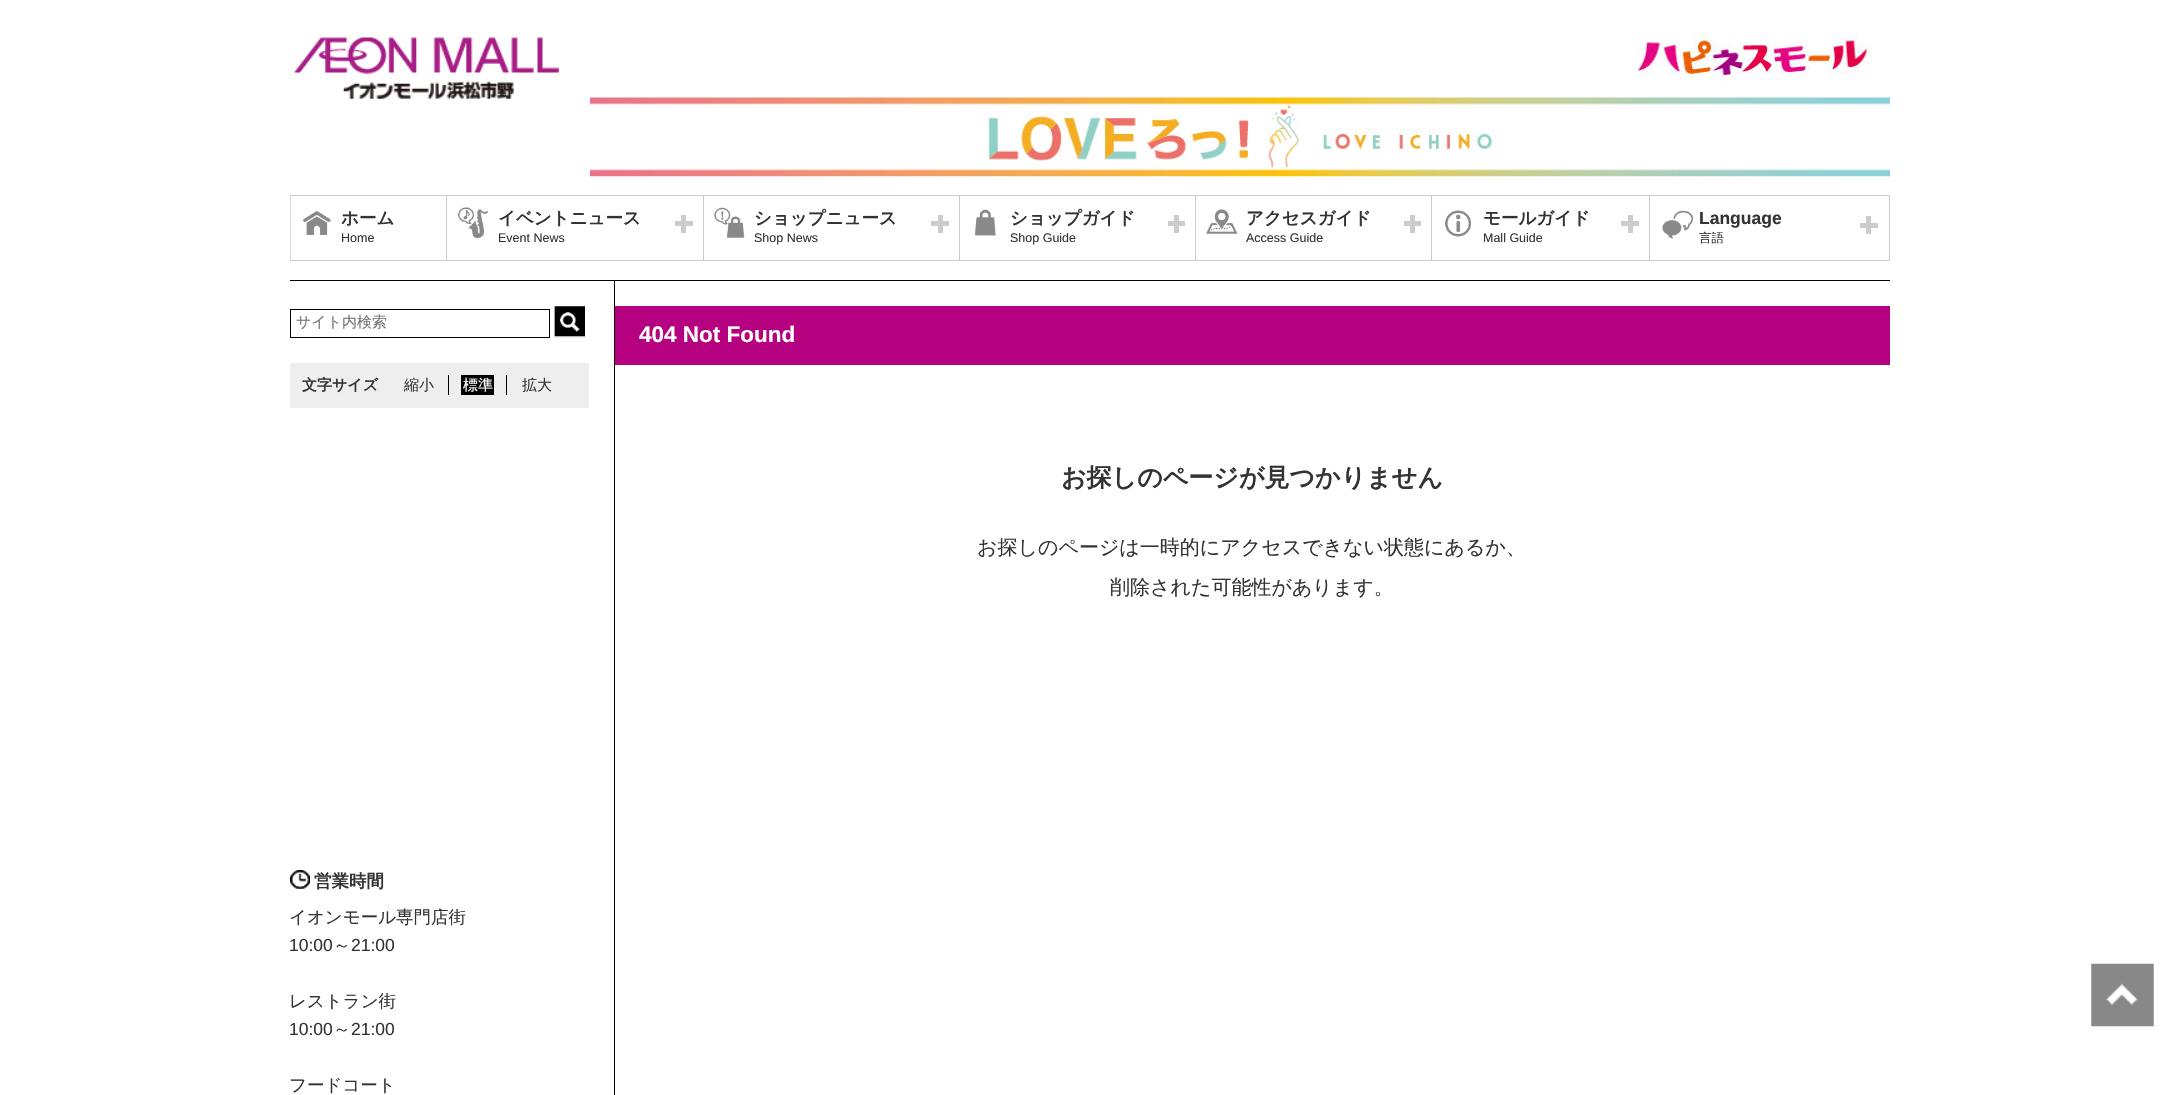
void draw(SkCanvas* canvas) {
	SkPaint fill;
	fill.setAntiAlias(true);
	auto makeFont = [&](const char* family, int weight, float size, bool italic = false) {
		SkFontStyle style(weight, SkFontStyle::kNormal_Width,
			italic ? SkFontStyle::kItalic_Slant : SkFontStyle::kUpright_Slant);
		SkFont result(fontMgr->matchFamilyStyle(family, style), size);
		result.setSubpixel(true);
		return result;
	};
	auto text = [&](const char* s, float x, float y, const SkFont& font) {
		canvas->drawString(s, x, y, font, fill);
	};
	auto box = [&](float l, float t, float r, float b) {
		canvas->drawRect(SkRect::MakeLTRB(l, t, r, b), fill);
	};
	auto picture = [&](const char* path, float l, float t, float r, float b) {
		auto image = SkImages::DeferredFromEncodedData(SkData::MakeFromFileName(path));
		canvas->drawImageRect(image, SkRect::MakeLTRB(l, t, r, b), SkSamplingOptions());
	};
	canvas->clear(0xFFFFFFFF);
	fill.setColor(0xFF000000);
	box(290, 280, 1890, 281);
	picture("image0.png", 293, 37, 559, 99);
	picture("image1.png", 1638, 34, 1874, 82);
	picture("image2.png", 590, 97, 1890, 177);
	fill.setColor(0xFFDDDDDD);
	box(290, 195, 291, 261);
	picture("image3.png", 303, 211, 331, 235);
	fill.setColor(0xFFCCCCCC);
	box(291, 195, 1650, 196);
	box(446, 195, 447, 261);
	box(291, 260, 448, 261);
	picture("image4.png", 458, 207, 488, 238);
	box(703, 195, 704, 261);
	box(448, 260, 704, 261);
	box(675, 221, 693, 226);
	box(681, 215, 686, 233);
	picture("image5.png", 714, 207, 745, 238);
	box(959, 195, 960, 261);
	box(704, 260, 960, 261);
	box(931, 221, 949, 226);
	box(938, 215, 943, 233);
	picture("image6.png", 974, 209, 996, 236);
	box(1195, 195, 1196, 261);
	box(960, 260, 1196, 261);
	box(1168, 221, 1185, 226);
	box(1174, 215, 1179, 233);
	picture("image7.png", 1206, 209, 1238, 234);
	box(1431, 195, 1432, 261);
	box(1196, 260, 1433, 261);
	box(1404, 221, 1421, 226);
	box(1410, 215, 1415, 233);
	picture("image8.png", 1445, 210, 1471, 237);
	box(1649, 195, 1650, 261);
	box(1433, 260, 1889, 261);
	box(1621, 221, 1639, 226);
	box(1628, 215, 1633, 233);
	box(1650, 195, 1890, 196);
	box(1889, 195, 1890, 261);
	picture("image9.png", 1662, 210, 1693, 239);
	box(1860, 223, 1878, 228);
	box(1866, 216, 1871, 234);
	fill.setColor(0xFF000000);
	box(614, 281, 615, 1095);
	fill.setStyle(SkPaint::kStroke_Style);
	fill.setStrokeWidth(1);
	canvas->drawRect(SkRect::MakeLTRB(290.5f, 309.5f, 549.5f, 337.5f), fill);
	fill.setStyle(SkPaint::kFill_Style);
	fill.setColor(0xFFEFEFEF);
	box(554, 306, 585, 338);
	picture("image10.png", 553, 306, 585, 337);
	fill.setColor(0xFFEEEEEE);
	box(290, 363, 589, 408);
	fill.setColor(0xFF000000);
	box(448, 375, 449, 395);
	box(461, 375, 494, 395);
	box(506, 375, 507, 395);
	picture("image11.png", 290, 870, 310, 889);
	fill.setColor(0xFFB50080);
	box(615, 306, 1890, 365);
	picture("image12.png", 2091, 963, 2154, 1027);
	auto font1 = makeFont("WenQuanYi Zen Hei", 700, 17.5f);
	fill.setColor(0xFF333333);
	text("ホーム", 341, 224, font1);
	auto font2 = makeFont("Liberation Sans", 400, 12.5f);
	text("Home", 341, 242, font2);
	text("イベントニュース", 498, 224, font1);
	text("Event News", 498, 242, font2);
	text("ショップニュース", 754, 224, font1);
	text("Shop News", 754, 242, font2);
	text("ショップガイド", 1010, 224, font1);
	text("Shop Guide", 1010, 242, font2);
	text("アクセスガイド", 1246, 224, font1);
	text("Access Guide", 1246, 242, font2);
	text("モールガイド", 1483, 224, font1);
	text("Mall Guide", 1483, 242, font2);
	auto font3 = makeFont("Liberation Sans", 700, 17.5f);
	text("Language", 1699, 224, font3);
	auto font4 = makeFont("WenQuanYi Zen Hei", 500, 12.5f);
	text("言語", 1699, 242, font4);
	auto font5 = makeFont("WenQuanYi Zen Hei", 500, 15);
	fill.setColor(0xFF757575);
	text("サイト内検索", 296, 327, font5);
	auto font6 = makeFont("WenQuanYi Zen Hei", 700, 15);
	fill.setColor(0xFF333333);
	text("文字サイズ", 302, 390, font6);
	text("縮小", 404, 390, font5);
	fill.setColor(0xFFFFFFFF);
	text("標準", 463, 390, font5);
	fill.setColor(0xFF333333);
	text("拡大", 522, 390, font5);
	text("営業時間", 314, 887, font1);
	auto font7 = makeFont("WenQuanYi Zen Hei", 500, 17.5f);
	text("イオンモール専門店街", 289, 923, font7);
	auto font8 = makeFont("Liberation Sans", 400, 17.5f);
	text("10:00", 289, 951, font8);
	text("～", 333, 951, font7);
	text("21:00", 351, 951, font8);
	text("レストラン街", 289, 1007, font7);
	text("10:00", 289, 1035, font8);
	text("～", 333, 1035, font7);
	text("21:00", 351, 1035, font8);
	text("フードコート", 289, 1091, font7);
	auto font9 = makeFont("Liberation Sans", 700, 22.5f);
	fill.setColor(0xFFFFFFFF);
	text("404 Not Found", 639, 342, font9);
	auto font10 = makeFont("WenQuanYi Zen Hei", 700, 25);
	fill.setColor(0xFF333333);
	text("お探しのページが見つかりません", 1061, 486, font10);
	auto font11 = makeFont("WenQuanYi Zen Hei", 500, 20);
	text("お探しのページは一時的にアクセスできない状態にあるか、", 977, 554, font11);
	text("削除された可能性があります。", 1110, 594, font11);
}
